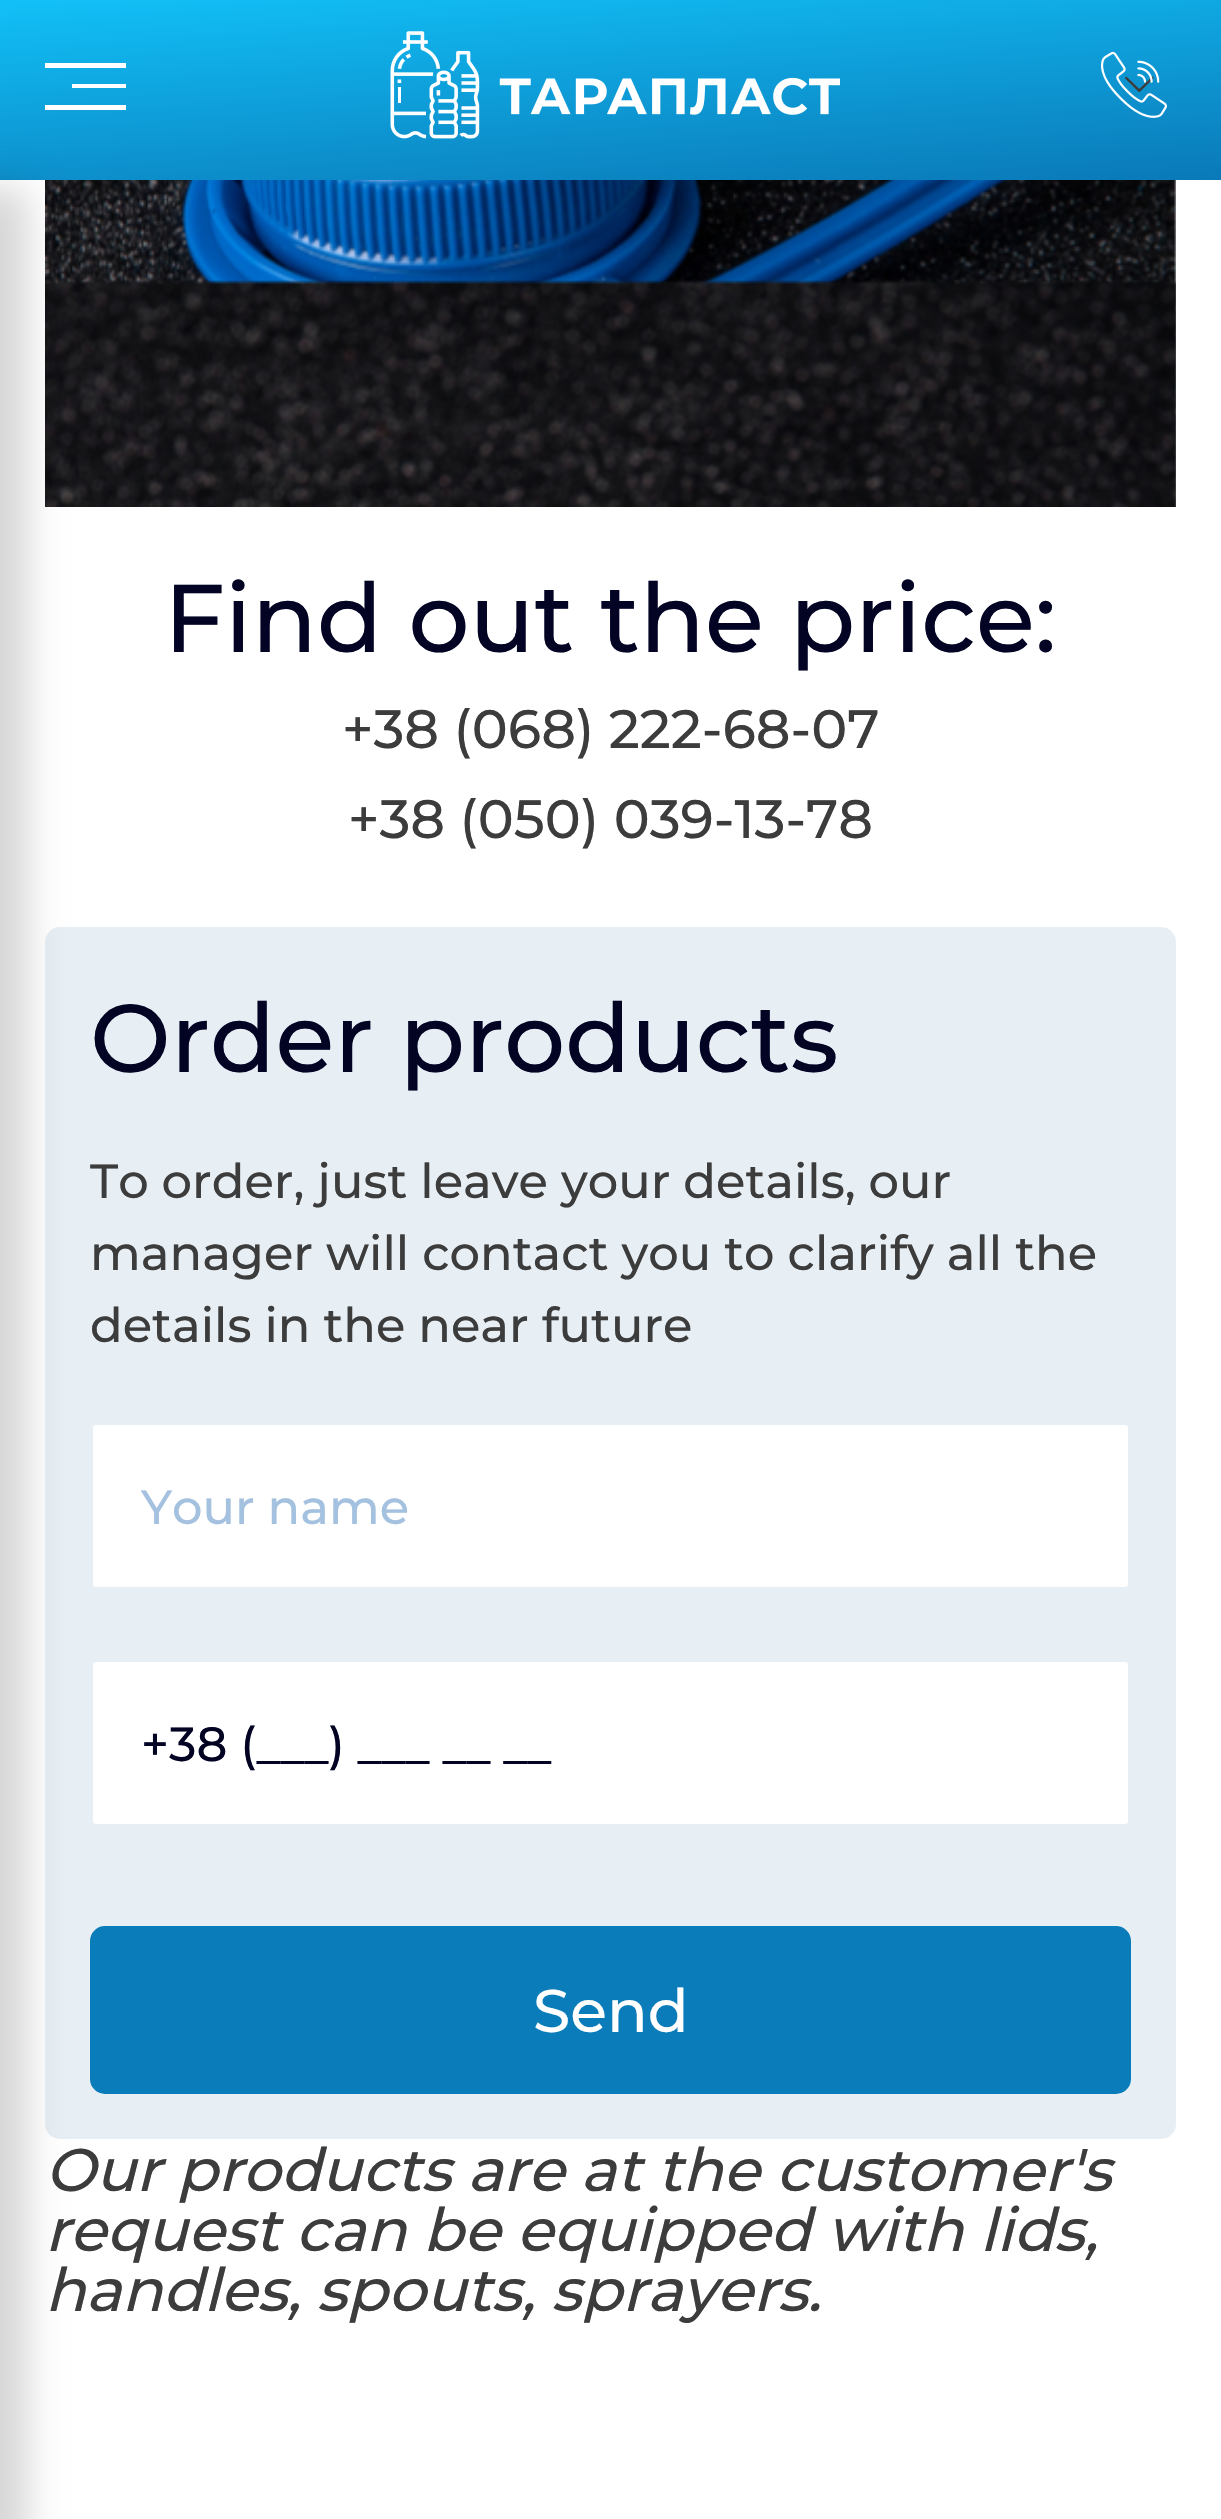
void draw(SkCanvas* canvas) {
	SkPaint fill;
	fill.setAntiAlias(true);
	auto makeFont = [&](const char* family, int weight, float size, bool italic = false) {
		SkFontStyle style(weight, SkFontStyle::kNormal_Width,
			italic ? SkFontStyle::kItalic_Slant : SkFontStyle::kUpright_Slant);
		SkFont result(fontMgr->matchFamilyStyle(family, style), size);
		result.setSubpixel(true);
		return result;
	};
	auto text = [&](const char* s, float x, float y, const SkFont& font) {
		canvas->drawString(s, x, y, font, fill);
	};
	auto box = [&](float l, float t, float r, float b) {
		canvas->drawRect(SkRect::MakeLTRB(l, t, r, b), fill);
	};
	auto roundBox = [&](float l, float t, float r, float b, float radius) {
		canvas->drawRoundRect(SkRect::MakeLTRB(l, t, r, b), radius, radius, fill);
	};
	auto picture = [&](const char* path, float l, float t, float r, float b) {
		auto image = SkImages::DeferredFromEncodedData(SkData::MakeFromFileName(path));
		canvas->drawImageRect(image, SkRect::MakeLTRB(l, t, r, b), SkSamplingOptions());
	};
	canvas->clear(0xFFFFFFFF);
	{
		const SkColor colors[] = {0xFF12C0F7, 0xFF0A79B8};
		const float stops[] = {0, 1};
		const SkPoint ends[] = {{601, -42}, {620, 222}};
		fill.setShader(SkGradientShader::MakeLinear(ends, colors, stops, 2, SkTileMode::kClamp));
		fill.setAlpha(255);
	}
	box(0, 0, 1221, 180);
	picture("image3.png", 45, 180, 1176, 507);
	picture("image4.png", 45, 280, 1176, 507);
	fill.setShader(nullptr);
	fill.setColor(0xFFE7EFF5);
	roundBox(45, 927, 1176, 2139, 15);
	fill.setColor(0x29000000);
	fill.setMaskFilter(SkMaskFilter::MakeBlur(kNormal_SkBlurStyle, 18));
	canvas->drawRect(SkRect::MakeLTRB(-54, 189, 27, 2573), fill);
	fill.setMaskFilter(nullptr);
	fill.setColor(0xFFFFFFFF);
	canvas->drawPath(SkPathBuilder(SkPathFillType::kEvenOdd).moveTo(45, 63).lineTo(126, 63).lineTo(126, 68).lineTo(45, 68).close().moveTo(72, 84).lineTo(126, 84).lineTo(126, 88).lineTo(72, 88).close().moveTo(126, 105).lineTo(45, 105).lineTo(45, 110).lineTo(126, 110).close().detach(), fill);
	picture("image0.png", 390, 31, 840, 139);
	picture("image2.png", 1125, 76, 1154, 92);
	picture("image1.png", 1101, 51, 1167, 118);
	canvas->drawRoundRect(SkRect::MakeLTRB(91.5f, 1423.5f, 1129.5f, 1588.5f), 4.5f, 4.5f, fill);
	fill.setStyle(SkPaint::kStroke_Style);
	fill.setStrokeWidth(3);
	fill.setColor(0xFFE7EFF5);
	canvas->drawRoundRect(SkRect::MakeLTRB(91.5f, 1423.5f, 1129.5f, 1588.5f), 4.5f, 4.5f, fill);
	fill.setStyle(SkPaint::kFill_Style);
	fill.setColor(0xFFFFFFFF);
	canvas->drawRoundRect(SkRect::MakeLTRB(91.5f, 1660.5f, 1129.5f, 1825.5f), 4.5f, 4.5f, fill);
	fill.setStyle(SkPaint::kStroke_Style);
	fill.setColor(0xFFE7EFF5);
	canvas->drawRoundRect(SkRect::MakeLTRB(91.5f, 1660.5f, 1129.5f, 1825.5f), 4.5f, 4.5f, fill);
	fill.setStyle(SkPaint::kFill_Style);
	fill.setColor(0xFF0B7CBA);
	canvas->drawRoundRect(SkRect::MakeLTRB(91.5f, 1927.5f, 1129.5f, 2092.5f), 13.5f, 13.5f, fill);
	fill.setStyle(SkPaint::kStroke_Style);
	canvas->drawRoundRect(SkRect::MakeLTRB(91.5f, 1927.5f, 1129.5f, 2092.5f), 13.5f, 13.5f, fill);
	auto font1 = makeFont("Montserrat", 500, 96);
	fill.setStyle(SkPaint::kFill_Style);
	fill.setColor(0xFF030424);
	text("Find out the price:", 164, 652, font1);
	auto font2 = makeFont("Montserrat", 500, 54);
	fill.setColor(0xFF3C3C3C);
	text("+38 (068) 222-68-07", 342, 748, font2);
	text("+38 (050) 039-13-78", 348, 838, font2);
	fill.setColor(0xFF030424);
	text("Order products", 90, 1072, font1);
	auto font3 = makeFont("Montserrat", 500, 48);
	fill.setColor(0xFF3C3C3C);
	text("To order, just leave your details, our", 90, 1198, font3);
	text("manager will contact you to clarify all the", 90, 1270, font3);
	text("details in the near future", 90, 1342, font3);
	fill.setColor(0xFFA4C1E0);
	text("Your name", 141, 1524, font3);
	fill.setColor(0xFF030424);
	text("+38 (___) ___ __ __", 141, 1761, font3);
	auto font4 = makeFont("Montserrat", 500, 60);
	fill.setColor(0xFFFFFFFF);
	text("Send", 533, 2032, font4);
	auto font5 = makeFont("Montserrat", 500, 60, true);
	fill.setColor(0xFF3C3C3C);
	text("Our products are at the customer's", 45, 2191, font5);
	text("request can be equipped with lids,", 45, 2251, font5);
	text("handles, spouts, sprayers.", 45, 2311, font5);
}
